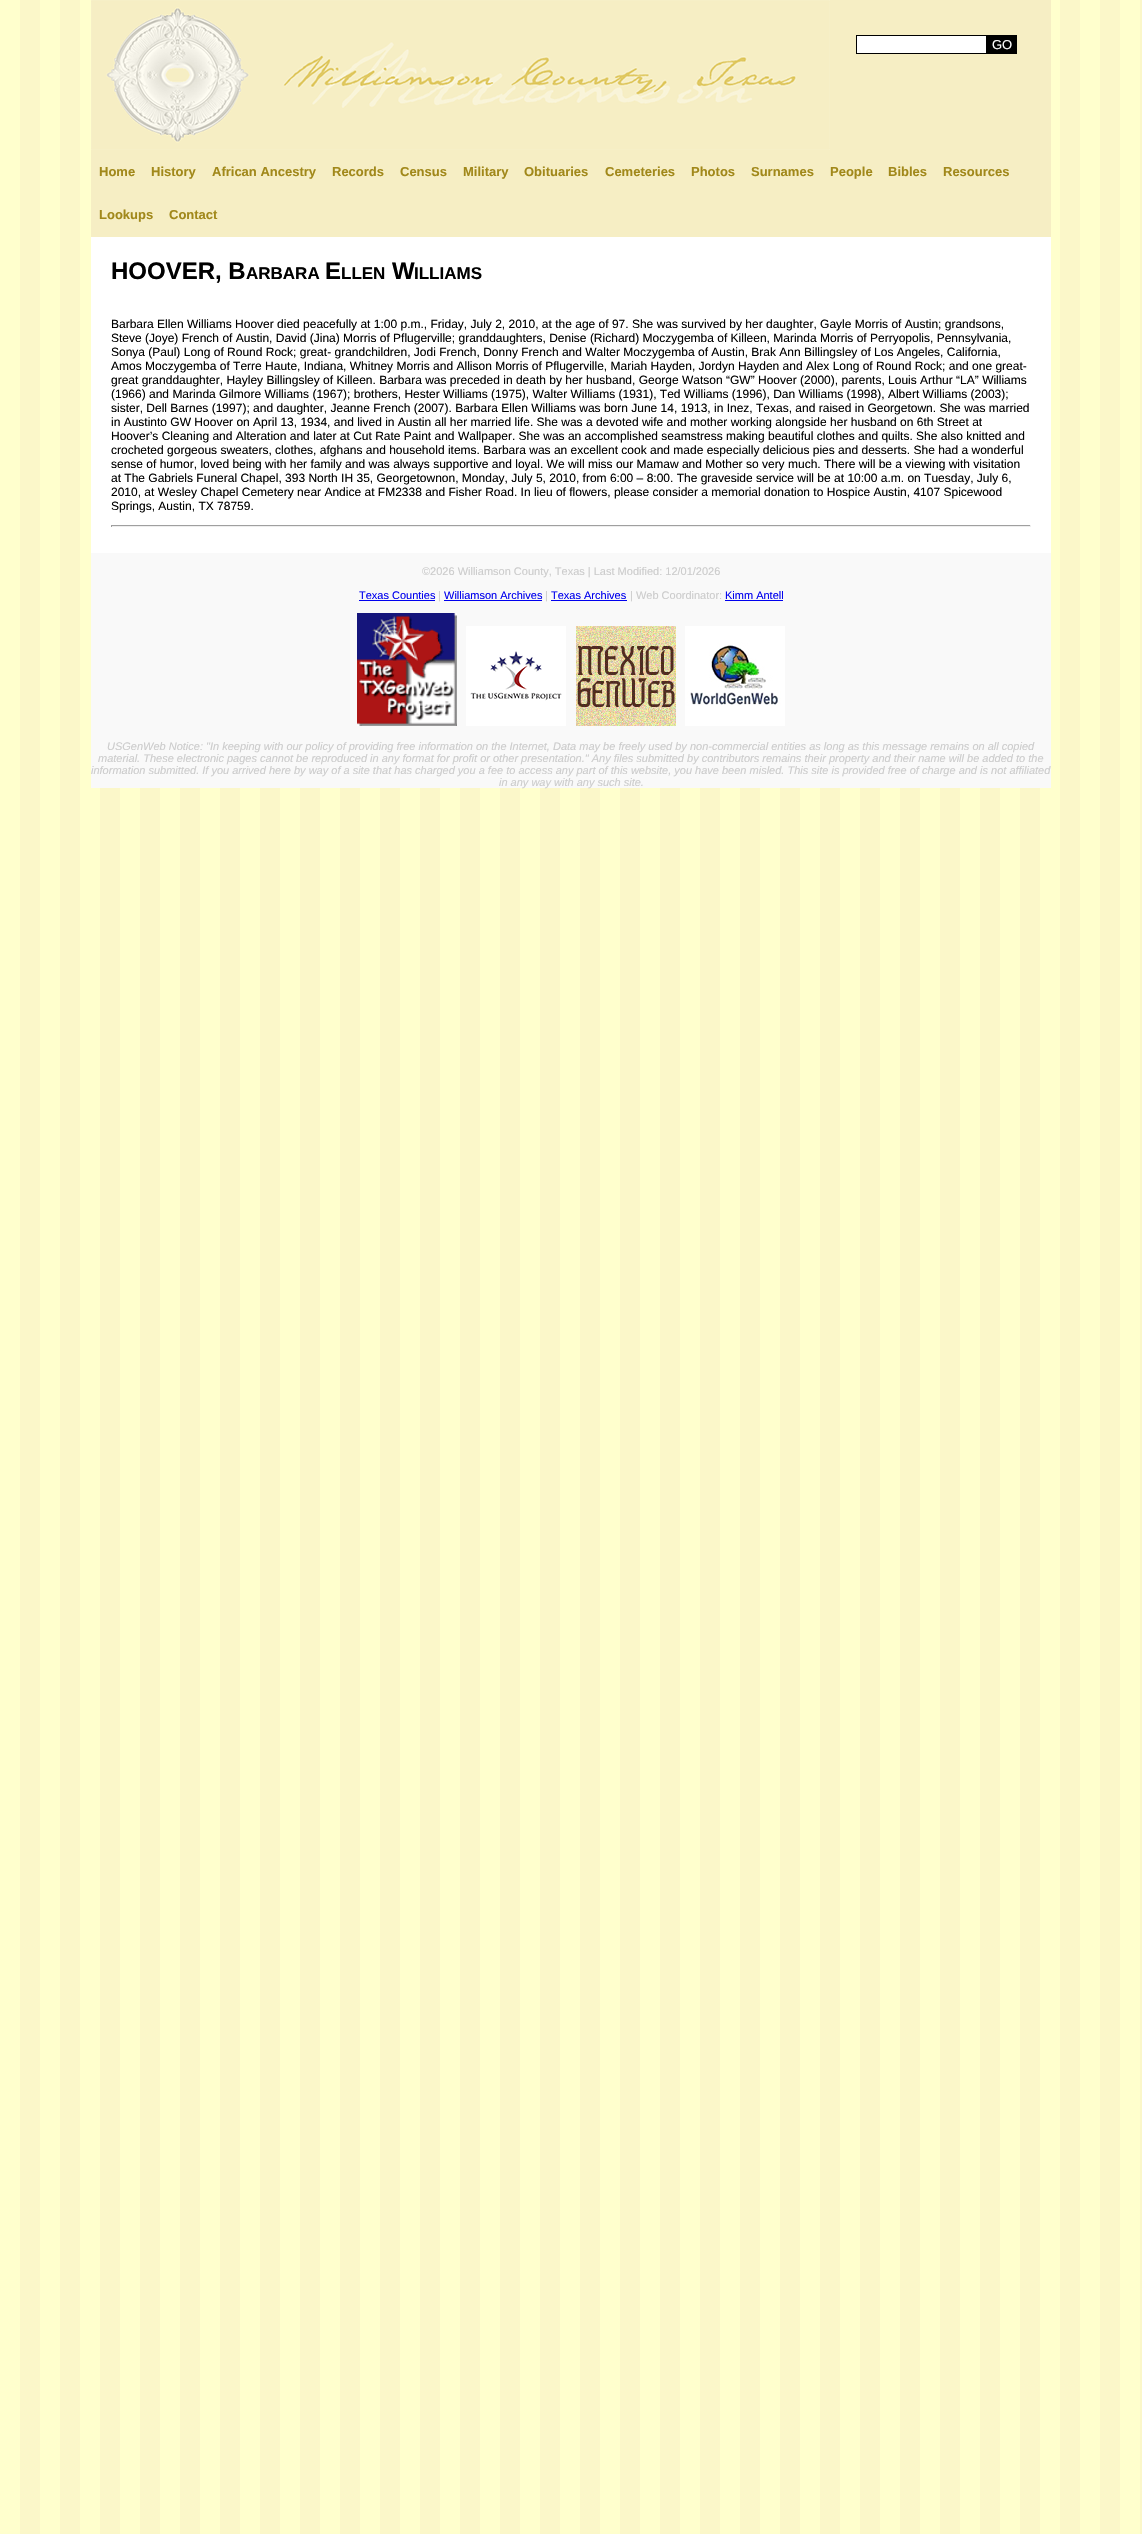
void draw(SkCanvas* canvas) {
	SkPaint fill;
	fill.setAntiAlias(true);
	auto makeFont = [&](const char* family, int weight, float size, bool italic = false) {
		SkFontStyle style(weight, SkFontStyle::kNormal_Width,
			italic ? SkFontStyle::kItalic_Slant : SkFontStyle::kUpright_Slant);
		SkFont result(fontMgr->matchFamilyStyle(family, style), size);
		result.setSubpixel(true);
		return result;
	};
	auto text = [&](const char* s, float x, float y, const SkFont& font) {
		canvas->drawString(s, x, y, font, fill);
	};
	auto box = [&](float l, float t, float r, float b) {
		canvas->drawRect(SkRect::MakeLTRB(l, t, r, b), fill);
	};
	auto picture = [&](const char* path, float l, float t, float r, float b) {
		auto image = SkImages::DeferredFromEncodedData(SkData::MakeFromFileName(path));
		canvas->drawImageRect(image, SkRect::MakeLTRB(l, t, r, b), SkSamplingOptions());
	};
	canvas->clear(0xFFFFFFFF);
	picture("image0.png", 0, 0, 1142, 2534);
	fill.setColor(0xFFFFFFFF);
	box(91, 237, 1051, 553);
	picture("image1.png", 91, 0, 1051, 150);
	canvas->drawRect(SkRect::MakeLTRB(856.5f, 35.5f, 986.5f, 53.5f), fill);
	fill.setStyle(SkPaint::kStroke_Style);
	fill.setStrokeWidth(1);
	fill.setColor(0xFF000000);
	canvas->drawRect(SkRect::MakeLTRB(856.5f, 35.5f, 986.5f, 53.5f), fill);
	fill.setStyle(SkPaint::kFill_Style);
	box(987, 35, 1017, 54);
	fill.setColor(0xFFF6EEC4);
	box(91, 150, 1051, 237);
	fill.setColor(0xFF9F9F9F);
	box(111, 525, 1031, 526);
	fill.setColor(0xFFEEEEEE);
	box(1030, 525, 1031, 527);
	box(111, 526, 1031, 527);
	fill.setColor(0xFF9F9F9F);
	box(111, 525, 112, 527);
	fill.setColor(0xFFF9F9F9);
	box(91, 553, 1051, 788);
	fill.setColor(0xFF0000EE);
	box(359, 600, 435, 601);
	box(444, 600, 542, 601);
	box(551, 600, 627, 601);
	box(725, 600, 783, 601);
	picture("image2.png", 357, 613, 457, 726);
	picture("image3.png", 466, 626, 566, 726);
	picture("image4.png", 576, 626, 676, 726);
	picture("image5.png", 685, 626, 785, 726);
	auto font1 = makeFont("Liberation Sans", 400, 13);
	fill.setColor(0xFFFFFFFF);
	text("GO", 992, 49, font1);
	auto font2 = makeFont("Liberation Sans", 700, 13);
	fill.setColor(0xFFA1881A);
	text("Home", 99, 176, font2);
	text("History", 151, 176, font2);
	text("African Ancestry", 212, 176, font2);
	text("Records", 332, 176, font2);
	text("Census", 400, 176, font2);
	text("Military", 463, 176, font2);
	text("Obituaries", 524, 176, font2);
	text("Cemeteries", 605, 176, font2);
	text("Photos", 691, 176, font2);
	text("Surnames", 751, 176, font2);
	text("People", 830, 176, font2);
	text("Bibles", 888, 176, font2);
	text("Resources", 943, 176, font2);
	text("Lookups", 99, 219, font2);
	text("Contact", 169, 219, font2);
	auto font3 = makeFont("Liberation Sans", 700, 24);
	fill.setColor(0xFF000000);
	text("HOOVER, B", 111, 279, font3);
	auto font4 = makeFont("Liberation Sans", 700, 17);
	text("ARBARA", 246, 279, font4);
	text("E", 325, 279, font3);
	text("LLEN", 341, 279, font4);
	text("W", 392, 279, font3);
	text("ILLIAMS", 414, 279, font4);
	auto font5 = makeFont("Liberation Sans", 400, 12);
	text("Barbara Ellen Williams Hoover died peacefully at 1:00 p.m., Friday, July 2, 2010, at the age of 97. She was survived by her daughter, Gayle Morris of Austin; grandsons,", 111, 328, font5);
	text("Steve (Joye) French of Austin, David (Jina) Morris of Pflugerville; granddaughters, Denise (Richard) Moczygemba of Killeen, Marinda Morris of Perryopolis, Pennsylvania,", 111, 342, font5);
	text("Sonya (Paul) Long of Round Rock; great- grandchildren, Jodi French, Donny French and Walter Moczygemba of Austin, Brak Ann Billingsley of Los Angeles, California,", 111, 356, font5);
	text("Amos Moczygemba of Terre Haute, Indiana, Whitney Morris and Allison Morris of Pflugerville, Mariah Hayden, Jordyn Hayden and Alex Long of Round Rock; and one great-", 111, 370, font5);
	text("great granddaughter, Hayley Billingsley of Killeen. Barbara was preceded in death by her husband, George Watson “GW” Hoover (2000), parents, Louis Arthur “LA” Williams", 111, 384, font5);
	text("(1966) and Marinda Gilmore Williams (1967); brothers, Hester Williams (1975), Walter Williams (1931), Ted Williams (1996), Dan Williams (1998), Albert Williams (2003);", 111, 398, font5);
	text("sister, Dell Barnes (1997); and daughter, Jeanne French (2007). Barbara Ellen Williams was born June 14, 1913, in Inez, Texas, and raised in Georgetown. She was married", 111, 412, font5);
	text("in Austinto GW Hoover on April 13, 1934, and lived in Austin all her married life. She was a devoted wife and mother working alongside her husband on 6th Street at", 111, 426, font5);
	text("Hoover’s Cleaning and Alteration and later at Cut Rate Paint and Wallpaper. She was an accomplished seamstress making beautiful clothes and quilts. She also knitted and", 111, 440, font5);
	text("crocheted gorgeous sweaters, clothes, afghans and household items. Barbara was an excellent cook and made especially delicious pies and desserts. She had a wonderful", 111, 454, font5);
	text("sense of humor, loved being with her family and was always supportive and loyal. We will miss our Mamaw and Mother so very much. There will be a viewing with visitation", 111, 468, font5);
	text("at The Gabriels Funeral Chapel, 393 North IH 35, Georgetownon, Monday, July 5, 2010, from 6:00 – 8:00. The graveside service will be at 10:00 a.m. on Tuesday, July 6,", 111, 482, font5);
	text("2010, at Wesley Chapel Cemetery near Andice at FM2338 and Fisher Road. In lieu of flowers, please consider a memorial donation to Hospice Austin, 4107 Spicewood", 111, 496, font5);
	text("Springs, Austin, TX 78759.", 111, 510, font5);
	auto font6 = makeFont("Liberation Sans", 400, 11);
	fill.setColor(0xFFCCCCCC);
	text("©2026 Williamson County, Texas | Last Modified: 12/01/2026", 422, 575, font6);
	fill.setColor(0xFF0000EE);
	text("Texas Counties", 359, 599, font6);
	fill.setColor(0xFFCCCCCC);
	text("|", 438, 599, font6);
	fill.setColor(0xFF0000EE);
	text("Williamson Archives", 444, 599, font6);
	fill.setColor(0xFFCCCCCC);
	text("|", 545, 599, font6);
	fill.setColor(0xFF0000EE);
	text("Texas Archives", 551, 599, font6);
	fill.setColor(0xFFCCCCCC);
	text("| Web Coordinator:", 630, 599, font6);
	fill.setColor(0xFF0000EE);
	text("Kimm Antell", 725, 599, font6);
	auto font7 = makeFont("Liberation Sans", 400, 11, true);
	fill.setColor(0xFFCCCCCC);
	text("USGenWeb Notice: \"In keeping with our policy of providing free information on the Internet, Data may be freely used by non-commercial entities as long as this message remains on all copied", 107, 750, font7);
	text("material. These electronic pages cannot be reproduced in any format for profit or other presentation.\" Any files submitted by contributors remains their property and their name will be added to the", 98, 762, font7);
	text("information submitted. If you arrived here by way of a site that has charged you a fee to access any part of this website, you have been misled. This site is provided free of charge and is not affiliated", 91, 774, font7);
	text("in any way with any such site.", 499, 786, font7);
}
